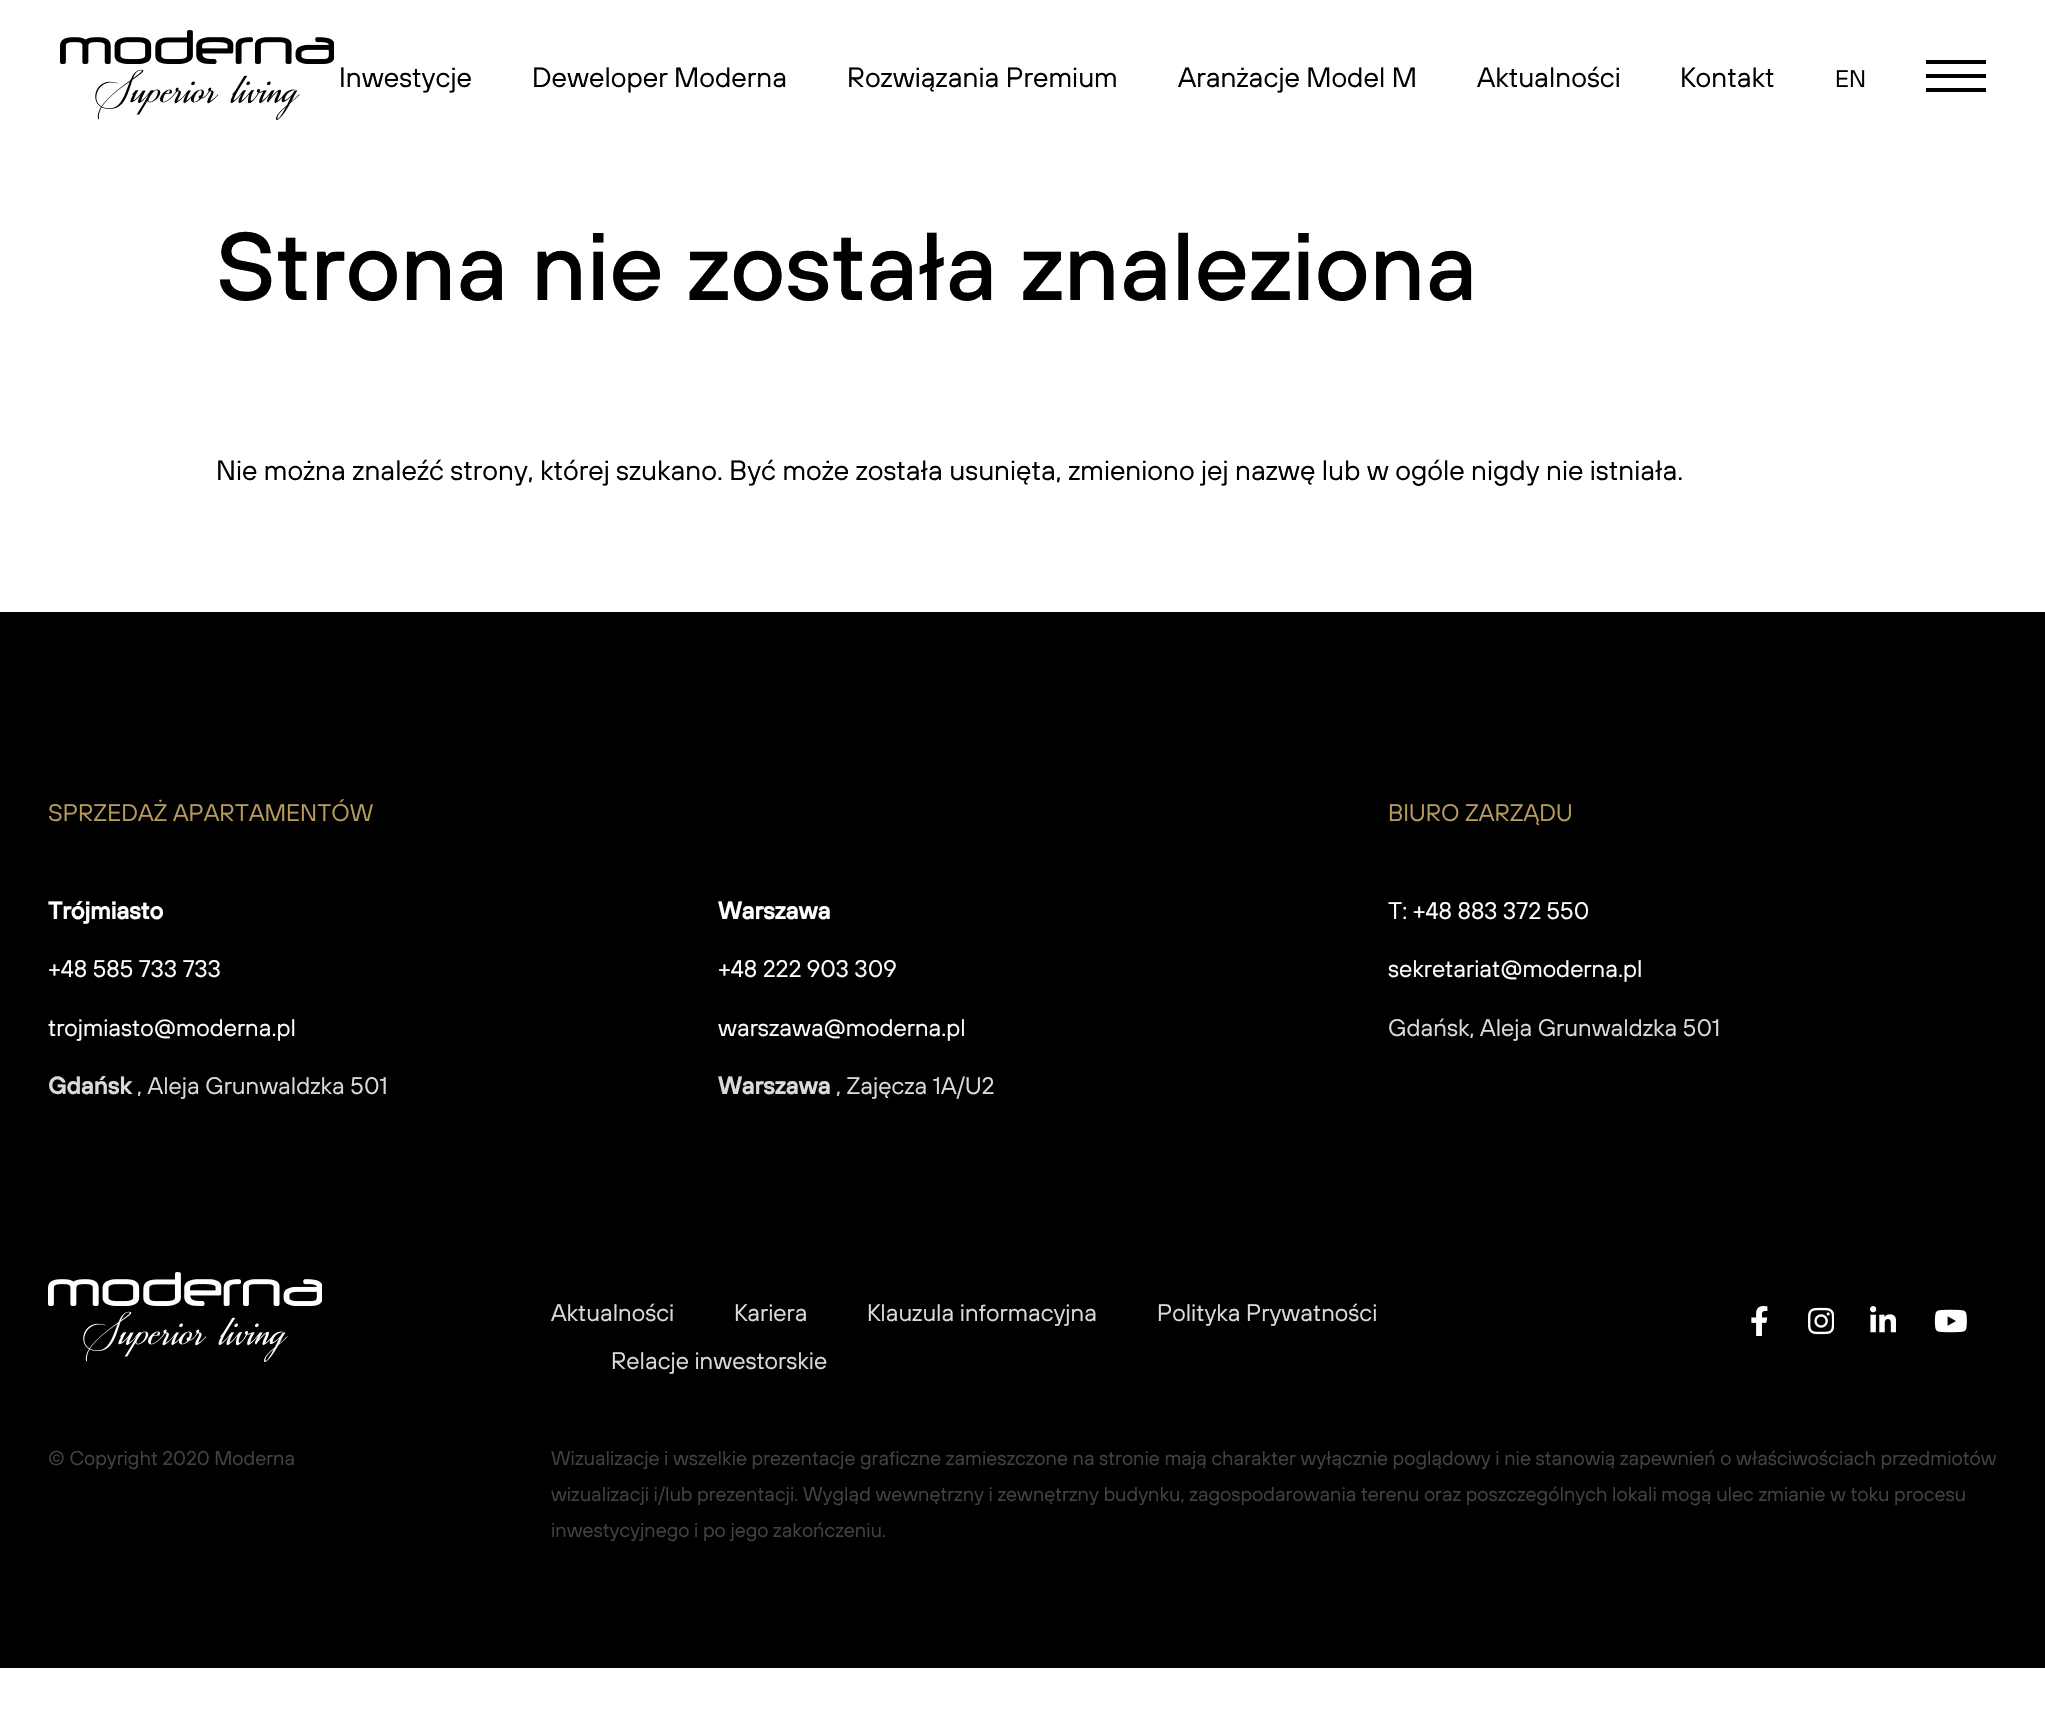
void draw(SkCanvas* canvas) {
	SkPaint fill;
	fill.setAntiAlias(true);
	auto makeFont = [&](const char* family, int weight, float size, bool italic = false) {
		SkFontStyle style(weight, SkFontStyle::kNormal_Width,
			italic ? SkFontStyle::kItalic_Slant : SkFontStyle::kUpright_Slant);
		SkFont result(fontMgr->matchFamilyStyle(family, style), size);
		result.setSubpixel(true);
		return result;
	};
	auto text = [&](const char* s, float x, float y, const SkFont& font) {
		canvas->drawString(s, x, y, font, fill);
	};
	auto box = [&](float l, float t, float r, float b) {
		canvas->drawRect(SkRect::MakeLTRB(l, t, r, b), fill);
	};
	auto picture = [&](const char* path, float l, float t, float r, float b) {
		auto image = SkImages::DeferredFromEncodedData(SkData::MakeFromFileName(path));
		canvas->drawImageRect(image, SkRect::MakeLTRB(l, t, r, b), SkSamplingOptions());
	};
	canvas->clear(0xFFFFFFFF);
	picture("image0.png", 60, 30, 334, 120);
	fill.setColor(0xFF000000);
	box(1926, 60, 1986, 64);
	box(1926, 74, 1986, 78);
	box(1926, 88, 1986, 92);
	box(0, 612, 2045, 1668);
	picture("image1.png", 48, 1272, 322, 1362);
	picture("image2.png", 1751, 1306, 1768, 1336);
	picture("image3.png", 1808, 1307, 1834, 1335);
	picture("image4.png", 1870, 1306, 1896, 1333);
	picture("image5.png", 1934, 1309, 1967, 1333);
	auto font1 = makeFont("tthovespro", 400, 28);
	text("Inwestycje", 339, 87, font1);
	text("Deweloper Moderna", 532, 87, font1);
	text("Rozwiązania Premium", 847, 87, font1);
	text("Aranżacje Model M", 1178, 87, font1);
	text("Aktualności", 1477, 87, font1);
	text("Kontakt", 1680, 87, font1);
	auto font2 = makeFont("tthovespro", 400, 24);
	text("EN", 1835, 87, font2);
	auto font3 = makeFont("tthovespro", 500, 96);
	text("Strona nie została znaleziona", 216, 300, font3);
	text("Nie można znaleźć strony, której szukano. Być może została usunięta, zmieniono jej nazwę lub w ogóle nigdy nie istniała.", 216, 480, font1);
	fill.setColor(0xFFB89A5B);
	text("SPRZEDAŻ APARTAMENTÓW", 48, 821, font2);
	auto font4 = makeFont("tthovespro", 700, 24);
	fill.setColor(0xFFFFFFFF);
	text("Trójmiasto", 48, 919, font4);
	text("+48 585 733 733", 48, 977, font2);
	text("trojmiasto@moderna.pl", 48, 1036, font2);
	fill.setColor(0xFFDADADA);
	text("Gdańsk", 48, 1094, font4);
	text(", Aleja Grunwaldzka 501", 137, 1094, font2);
	fill.setColor(0xFFFFFFFF);
	text("Warszawa", 718, 919, font4);
	text("+48 222 903 309", 718, 977, font2);
	text("warszawa@moderna.pl", 718, 1036, font2);
	fill.setColor(0xFFDADADA);
	text("Warszawa", 718, 1094, font4);
	text(", Zajęcza 1A/U2", 836, 1094, font2);
	fill.setColor(0xFFB89A5B);
	text("BIURO ZARZĄDU", 1388, 821, font2);
	fill.setColor(0xFFFFFFFF);
	text("T: +48 883 372 550", 1388, 919, font2);
	text("sekretariat@moderna.pl", 1388, 977, font2);
	fill.setColor(0xFFDADADA);
	text("Gdańsk, Aleja Grunwaldzka 501", 1388, 1036, font2);
	text("Aktualności", 551, 1321, font2);
	text("Kariera", 734, 1321, font2);
	text("Klauzula informacyjna", 867, 1321, font2);
	text("Polityka Prywatności", 1157, 1321, font2);
	text("Relacje inwestorskie", 611, 1369, font2);
	auto font5 = makeFont("tthovespro", 400, 20);
	fill.setColor(0xFF3F4345);
	text("© Copyright 2020 Moderna", 48, 1465, font5);
	text("Wizualizacje i wszelkie prezentacje graficzne zamieszczone na stronie mają charakter wyłącznie poglądowy i nie stanowią zapewnień o właściwościach przedmiotów", 551, 1465, font5);
	text("wizualizacji i/lub prezentacji. Wygląd wewnętrzny i zewnętrzny budynku, zagospodarowania terenu oraz poszczególnych lokali mogą ulec zmianie w toku procesu", 551, 1501, font5);
	text("inwestycyjnego i po jego zakończeniu.", 551, 1537, font5);
}
